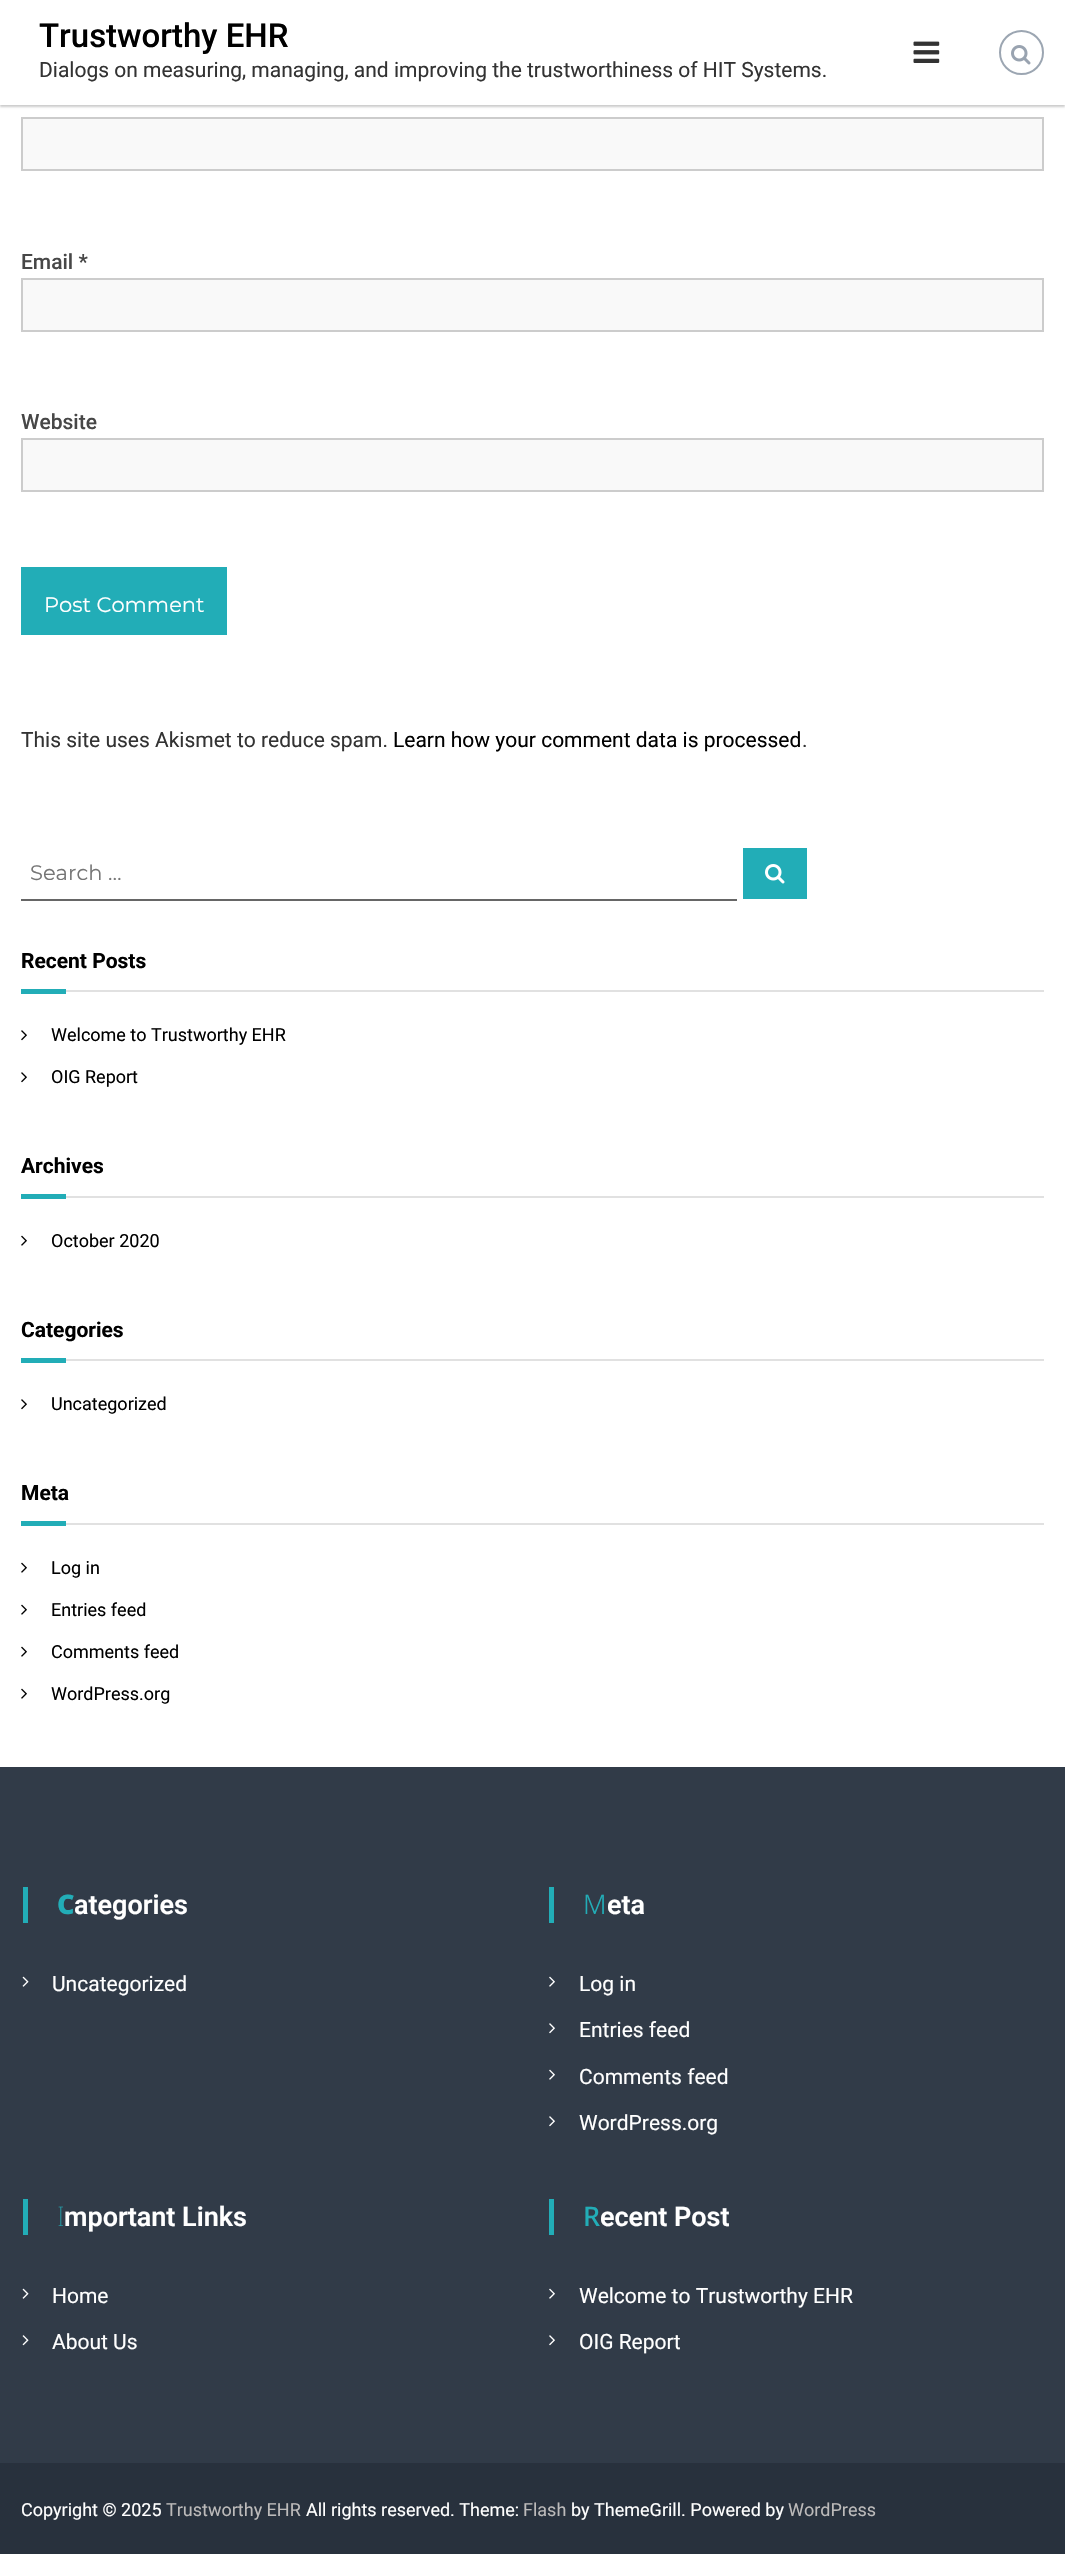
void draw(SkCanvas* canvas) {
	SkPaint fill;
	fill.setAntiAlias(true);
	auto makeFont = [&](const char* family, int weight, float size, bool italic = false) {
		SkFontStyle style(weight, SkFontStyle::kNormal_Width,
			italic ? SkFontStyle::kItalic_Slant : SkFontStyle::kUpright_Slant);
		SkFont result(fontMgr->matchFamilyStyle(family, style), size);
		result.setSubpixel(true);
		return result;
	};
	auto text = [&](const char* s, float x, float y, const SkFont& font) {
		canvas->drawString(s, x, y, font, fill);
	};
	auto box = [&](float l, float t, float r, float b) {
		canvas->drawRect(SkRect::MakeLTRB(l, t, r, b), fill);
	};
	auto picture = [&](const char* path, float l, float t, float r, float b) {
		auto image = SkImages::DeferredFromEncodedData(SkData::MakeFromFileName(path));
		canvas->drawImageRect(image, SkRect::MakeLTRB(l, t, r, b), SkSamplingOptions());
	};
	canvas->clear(0xFFFFFFFF);
	fill.setColor(0x33000000);
	fill.setMaskFilter(SkMaskFilter::MakeBlur(kNormal_SkBlurStyle, 1));
	canvas->drawRect(SkRect::MakeLTRB(0, 2, 1065, 107), fill);
	fill.setMaskFilter(nullptr);
	fill.setColor(0xFFFFFFFF);
	box(0, 0, 1065, 105);
	picture("image0.png", 913, 41, 940, 63);
	fill.setStyle(SkPaint::kStroke_Style);
	fill.setStrokeWidth(2);
	fill.setColor(0xFF9CA6B2);
	canvas->drawCircle(1021.5f, 52.5f, 21.5f, fill);
	picture("image1.png", 1011, 45, 1031, 65);
	fill.setStyle(SkPaint::kFill_Style);
	fill.setColor(0xFFF9F9F9);
	canvas->drawRect(SkRect::MakeLTRB(22, 118, 1043, 170), fill);
	fill.setStyle(SkPaint::kStroke_Style);
	fill.setColor(0xFFCCCCCC);
	canvas->drawRect(SkRect::MakeLTRB(22, 118, 1043, 170), fill);
	fill.setStyle(SkPaint::kFill_Style);
	fill.setColor(0xFFF9F9F9);
	canvas->drawRect(SkRect::MakeLTRB(22, 279, 1043, 331), fill);
	fill.setStyle(SkPaint::kStroke_Style);
	fill.setColor(0xFFCCCCCC);
	canvas->drawRect(SkRect::MakeLTRB(22, 279, 1043, 331), fill);
	fill.setStyle(SkPaint::kFill_Style);
	fill.setColor(0xFFF9F9F9);
	canvas->drawRect(SkRect::MakeLTRB(22, 439, 1043, 491), fill);
	fill.setStyle(SkPaint::kStroke_Style);
	fill.setColor(0xFFCCCCCC);
	canvas->drawRect(SkRect::MakeLTRB(22, 439, 1043, 491), fill);
	fill.setStyle(SkPaint::kFill_Style);
	fill.setColor(0xFF22ADB7);
	box(21, 567, 227, 635);
	fill.setColor(0xFF666666);
	box(21, 899, 737, 901);
	fill.setColor(0xFF22ADB7);
	box(743, 848, 807, 899);
	picture("image2.png", 765, 864, 785, 884);
	box(21, 989, 66, 994);
	fill.setColor(0xFFE1E1E1);
	box(66, 990, 1044, 992);
	picture("image3.png", 21, 1030, 27, 1041);
	picture("image3.png", 21, 1072, 27, 1083);
	fill.setColor(0xFF22ADB7);
	box(21, 1194, 66, 1199);
	fill.setColor(0xFFE1E1E1);
	box(66, 1196, 1044, 1198);
	picture("image4.png", 21, 1235, 27, 1246);
	fill.setColor(0xFF22ADB7);
	box(21, 1358, 66, 1363);
	fill.setColor(0xFFE1E1E1);
	box(66, 1359, 1044, 1361);
	picture("image3.png", 21, 1399, 27, 1410);
	fill.setColor(0xFF22ADB7);
	box(21, 1521, 66, 1526);
	fill.setColor(0xFFE1E1E1);
	box(66, 1523, 1044, 1525);
	picture("image4.png", 21, 1562, 27, 1573);
	picture("image4.png", 21, 1604, 27, 1615);
	picture("image4.png", 21, 1646, 27, 1657);
	picture("image4.png", 21, 1688, 27, 1699);
	fill.setColor(0xFF313B48);
	box(0, 1767, 1065, 2463);
	fill.setColor(0xFF22ADB7);
	box(23, 1887, 28, 1923);
	picture("image5.png", 22, 1976, 29, 1987);
	box(549, 1887, 554, 1923);
	picture("image6.png", 549, 1976, 555, 1987);
	picture("image7.png", 549, 2023, 555, 2034);
	picture("image6.png", 549, 2069, 555, 2080);
	picture("image7.png", 549, 2116, 555, 2127);
	box(23, 2199, 28, 2235);
	picture("image5.png", 22, 2288, 29, 2299);
	picture("image8.png", 22, 2335, 29, 2346);
	box(549, 2199, 554, 2235);
	picture("image6.png", 549, 2288, 555, 2299);
	picture("image7.png", 549, 2335, 555, 2346);
	fill.setColor(0xFF28313D);
	box(0, 2463, 1065, 2554);
	auto font1 = makeFont("Roboto", 500, 33);
	fill.setColor(0xFF000000);
	text("Trustworthy EHR", 39, 47, font1);
	auto font2 = makeFont("Roboto", 400, 21);
	fill.setColor(0xFF333333);
	text("Dialogs on measuring, managing, and improving the trustworthiness of HIT Systems.", 39, 77, font2);
	auto font3 = makeFont("Roboto", 500, 21);
	fill.setColor(0xFF474747);
	text("Email *", 21, 269, font3);
	text("Website", 21, 429, font3);
	auto font4 = makeFont("Montserrat", 400, 21);
	fill.setColor(0xFFFFFFFF);
	text("Post Comment", 44, 612, font4);
	fill.setColor(0xFF333333);
	text("This site uses Akismet to reduce spam.", 21, 747, font2);
	fill.setColor(0xFF000000);
	text("Learn how your comment data is processed", 393, 747, font2);
	fill.setColor(0xFF333333);
	text(".", 802, 747, font2);
	fill.setColor(0xFF757575);
	text("Search …", 30, 880, font4);
	auto font5 = makeFont("Roboto", 700, 21);
	fill.setColor(0xFF000000);
	text("Recent Posts", 21, 968, font5);
	auto font6 = makeFont("Roboto", 400, 18);
	text("Welcome to Trustworthy EHR", 51, 1041, font6);
	text("OIG Report", 51, 1083, font6);
	text("Archives", 21, 1173, font5);
	text("October 2020", 51, 1247, font6);
	text("Categories", 21, 1337, font5);
	text("Uncategorized", 51, 1410, font6);
	text("Meta", 21, 1500, font5);
	text("Log in", 51, 1574, font6);
	text("Entries feed", 51, 1616, font6);
	text("Comments feed", 51, 1658, font6);
	text("WordPress.org", 51, 1700, font6);
	auto font7 = makeFont("Noto Sans", 900, 27);
	fill.setColor(0xFF22ADB7);
	text("C", 57, 1914, font7);
	auto font8 = makeFont("Roboto", 600, 27);
	fill.setColor(0xFFFFFFFF);
	text("ategories", 74, 1914, font8);
	text("Uncategorized", 52, 1991, font2);
	auto font9 = makeFont("Noto Sans", 300, 27);
	fill.setColor(0xFF22ADB7);
	text("M", 583, 1914, font9);
	fill.setColor(0xFFFFFFFF);
	text("eta", 607, 1914, font8);
	text("Log in", 579, 1991, font2);
	text("Entries feed", 579, 2037, font2);
	text("Comments feed", 579, 2084, font2);
	text("WordPress.org", 579, 2130, font2);
	auto font10 = makeFont("Noto Sans", 100, 27);
	fill.setColor(0xFF22ADB7);
	text("I", 57, 2226, font10);
	fill.setColor(0xFFFFFFFF);
	text("mportant Links", 64, 2226, font8);
	text("Home", 52, 2303, font2);
	text("About Us", 52, 2349, font2);
	auto font11 = makeFont("Noto Sans", 500, 27);
	fill.setColor(0xFF22ADB7);
	text("R", 583, 2226, font11);
	fill.setColor(0xFFFFFFFF);
	text("ecent Post", 600, 2226, font8);
	text("Welcome to Trustworthy EHR", 579, 2303, font2);
	text("OIG Report", 579, 2349, font2);
	text("Copyright © 2025", 21, 2516, font6);
	fill.setColor(0xFFBCBABA);
	text("Trustworthy EHR", 166, 2516, font6);
	fill.setColor(0xFFFFFFFF);
	text("All rights reserved. Theme:", 306, 2516, font6);
	fill.setColor(0xFFBCBABA);
	text("Flash", 523, 2516, font6);
	fill.setColor(0xFFFFFFFF);
	text("by ThemeGrill. Powered by", 571, 2516, font6);
	fill.setColor(0xFFBCBABA);
	text("WordPress", 788, 2516, font6);
}
